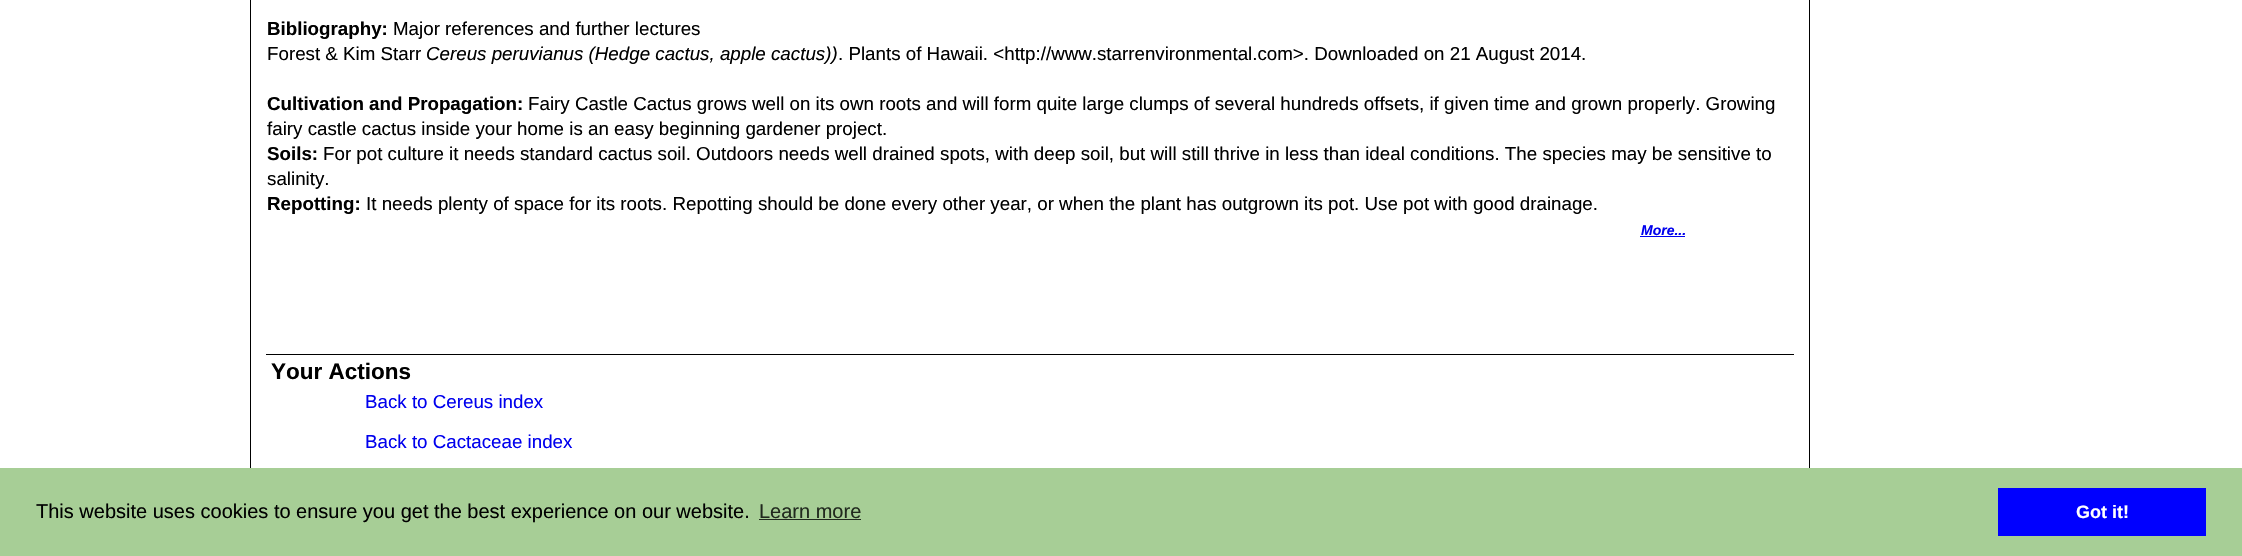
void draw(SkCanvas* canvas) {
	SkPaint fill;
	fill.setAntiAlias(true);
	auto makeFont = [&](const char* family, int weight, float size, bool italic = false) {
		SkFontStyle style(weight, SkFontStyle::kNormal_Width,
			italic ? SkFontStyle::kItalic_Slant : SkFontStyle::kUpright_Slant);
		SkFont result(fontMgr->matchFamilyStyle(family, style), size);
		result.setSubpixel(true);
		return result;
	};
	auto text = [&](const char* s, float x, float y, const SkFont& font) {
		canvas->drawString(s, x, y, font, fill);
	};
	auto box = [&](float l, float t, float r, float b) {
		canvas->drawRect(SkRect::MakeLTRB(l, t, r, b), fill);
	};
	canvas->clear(0xFFFFFFFF);
	fill.setStyle(SkPaint::kStroke_Style);
	fill.setStrokeWidth(1);
	fill.setColor(0xFF000000);
	canvas->drawRect(SkRect::MakeLTRB(250.5f, -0.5f, 1809.5f, 498.5f), fill);
	fill.setStyle(SkPaint::kFill_Style);
	fill.setColor(0xFF0000EE);
	box(1640, 236, 1685, 237);
	fill.setColor(0xFF000000);
	box(266, 354, 1794, 355);
	fill.setColor(0xFFA7CE96);
	box(0, 468, 2242, 556);
	fill.setColor(0xFF21291E);
	box(759, 519, 861, 520);
	fill.setColor(0xFF0000FF);
	box(1998, 488, 2206, 536);
	auto font1 = makeFont("Liberation Sans", 700, 18.75f);
	fill.setColor(0xFF000000);
	text("Bibliography:", 267, 35, font1);
	auto font2 = makeFont("Liberation Sans", 400, 18.75f);
	text("Major references and further lectures", 393, 35, font2);
	text("Forest & Kim Starr", 267, 60, font2);
	auto font3 = makeFont("Liberation Sans", 400, 18.75f, true);
	text("Cereus peruvianus (Hedge cactus, apple cactus))", 426, 60, font3);
	text(". Plants of Hawaii. <http://www.starrenvironmental.com>. Downloaded on 21 August 2014.", 838, 60, font2);
	text("Cultivation and Propagation:", 267, 110, font1);
	text("Fairy Castle Cactus grows well on its own roots and will form quite large clumps of several hundreds offsets, if given time and grown properly. Growing", 528, 110, font2);
	text("fairy castle cactus inside your home is an easy beginning gardener project.", 267, 135, font2);
	text("Soils:", 267, 160, font1);
	text("For pot culture it needs standard cactus soil. Outdoors needs well drained spots, with deep soil, but will still thrive in less than ideal conditions. The species may be sensitive to", 323, 160, font2);
	text("salinity.", 267, 185, font2);
	text("Repotting:", 267, 210, font1);
	text("It needs plenty of space for its roots. Repotting should be done every other year, or when the plant has outgrown its pot. Use pot with good drainage.", 366, 210, font2);
	auto font4 = makeFont("Liberation Sans", 700, 14, true);
	fill.setColor(0xFF0000EE);
	text("More...", 1641, 235, font4);
	auto font5 = makeFont("Liberation Sans", 700, 22.5f);
	fill.setColor(0xFF000000);
	text("Your Actions", 271, 379, font5);
	fill.setColor(0xFF0000EE);
	text("Back to Cereus index", 365, 408, font2);
	text("Back to Cactaceae index", 365, 448, font2);
	auto font6 = makeFont("Liberation Sans", 400, 20);
	fill.setColor(0xFF000000);
	text("This website uses cookies to ensure you get the best experience on our website.", 36, 518, font6);
	fill.setColor(0xFF21291E);
	text("Learn more", 759, 518, font6);
	auto font7 = makeFont("Liberation Sans", 700, 18);
	fill.setColor(0xFFFFFFFF);
	text("Got it!", 2076, 518, font7);
}
